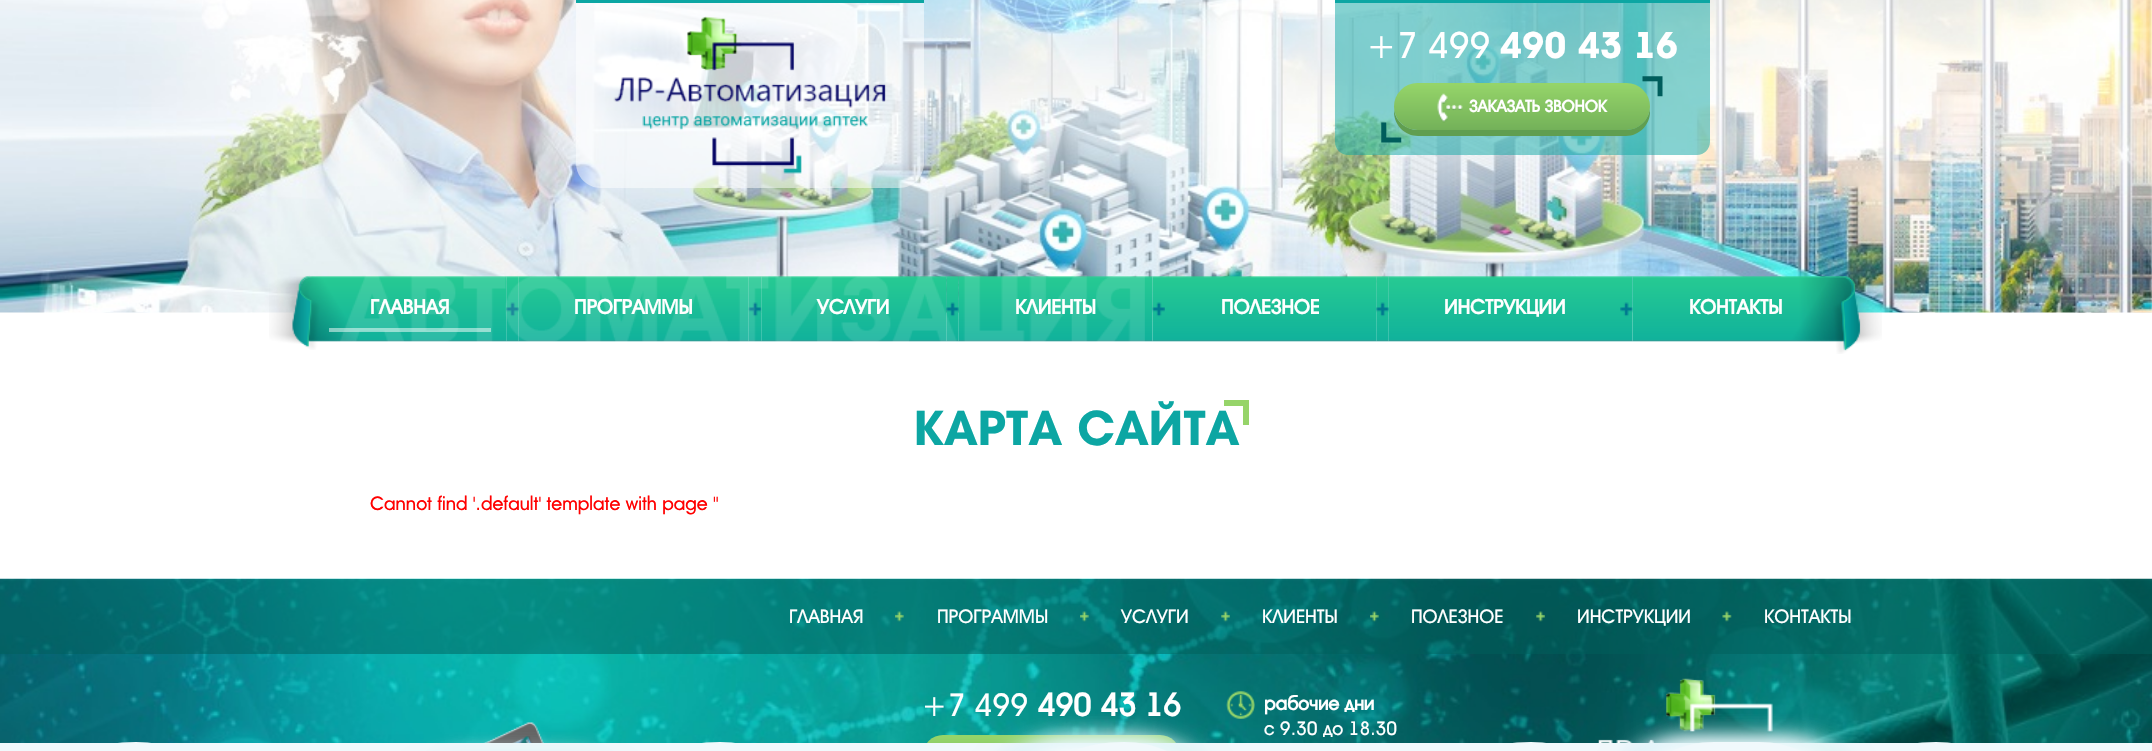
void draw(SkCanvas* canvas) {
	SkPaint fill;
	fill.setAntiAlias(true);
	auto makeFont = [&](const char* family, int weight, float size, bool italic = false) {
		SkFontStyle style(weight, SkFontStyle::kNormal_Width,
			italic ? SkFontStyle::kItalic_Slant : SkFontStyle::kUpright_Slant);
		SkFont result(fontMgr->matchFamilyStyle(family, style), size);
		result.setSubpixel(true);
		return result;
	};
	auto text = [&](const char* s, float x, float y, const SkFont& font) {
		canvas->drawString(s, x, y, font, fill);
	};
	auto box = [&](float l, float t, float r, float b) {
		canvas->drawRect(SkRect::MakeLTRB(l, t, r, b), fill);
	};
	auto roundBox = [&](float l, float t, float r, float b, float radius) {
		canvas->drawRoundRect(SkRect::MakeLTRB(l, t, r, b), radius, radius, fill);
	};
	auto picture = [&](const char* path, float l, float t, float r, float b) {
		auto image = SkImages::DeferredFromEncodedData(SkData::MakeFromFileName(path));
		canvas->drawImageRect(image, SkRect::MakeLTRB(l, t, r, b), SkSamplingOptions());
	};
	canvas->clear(0xFFFFFFFF);
	picture("image0.png", 0, 0, 2152, 313);
	fill.setColor(0x80FFFFFF);
	canvas->drawPath(SkPathBuilder().moveTo(576, 0).lineTo(924, 0).lineTo(924, 163).cubicTo(924, 177, 913, 188, 899, 188).lineTo(601, 188).cubicTo(587, 188, 576, 177, 576, 163).close().detach(), fill);
	picture("image1.png", 613, 16, 886, 174);
	fill.setColor(0xFF0CA6A3);
	box(576, 0, 924, 3);
	fill.setColor(0x800BA6A3);
	canvas->drawPath(SkPathBuilder().moveTo(1335, 0).lineTo(1710, 0).lineTo(1710, 142).cubicTo(1710, 149, 1704, 155, 1697, 155).lineTo(1348, 155).cubicTo(1341, 155, 1335, 149, 1335, 142).close().detach(), fill);
	fill.setColor(0xFF0CA6A3);
	box(1335, 0, 1710, 3);
	fill.setColor(0xFF609E50);
	canvas->drawPath(SkPathBuilder().moveTo(1394, 110).lineTo(1394, 112).cubicTo(1394, 125, 1405, 136, 1418, 136).lineTo(1626, 136).cubicTo(1639, 136, 1650, 125, 1650, 112).lineTo(1650, 109).cubicTo(1648, 121, 1638, 130, 1626, 130).lineTo(1418, 130).cubicTo(1406, 130, 1396, 122, 1394, 110).close().detach(), fill);
	{
		const SkColor colors[] = {0xFF95D469, 0xFF73B159};
		const float stops[] = {0.05f, 1};
		const SkPoint ends[] = {{1522, 82}, {1522, 130}};
		fill.setShader(SkGradientShader::MakeLinear(ends, colors, stops, 2, SkTileMode::kClamp));
		fill.setAlpha(255);
	}
	roundBox(1394, 83, 1650, 130, 23.5f);
	picture("image2.png", 1642, 76, 1663, 97);
	picture("image3.png", 1437, 93, 1463, 123);
	picture("image4.png", 1381, 122, 1402, 143);
	picture("image5.png", 269, 275, 507, 350);
	picture("image7.png", 506, 276, 519, 342);
	picture("image8.png", 506, 302, 519, 317);
	picture("image9.png", 518, 276, 749, 342);
	picture("image10.png", 748, 276, 762, 342);
	picture("image11.png", 748, 302, 762, 317);
	picture("image12.png", 761, 276, 947, 342);
	picture("image13.png", 946, 276, 959, 342);
	picture("image14.png", 946, 302, 959, 317);
	picture("image15.png", 958, 276, 1153, 342);
	picture("image6.png", 340, 275, 1145, 342);
	fill.setShader(nullptr);
	fill.setColor(0x80FFFFFF);
	box(329, 328, 491, 332);
	picture("image16.png", 1152, 276, 1165, 342);
	picture("image17.png", 1152, 302, 1165, 317);
	picture("image18.png", 1165, 276, 1377, 342);
	picture("image19.png", 1376, 276, 1389, 342);
	picture("image20.png", 1376, 302, 1389, 317);
	picture("image21.png", 1388, 276, 1620, 342);
	picture("image22.png", 1620, 276, 1633, 342);
	picture("image23.png", 1620, 302, 1633, 317);
	picture("image24.png", 1632, 276, 1882, 354);
	fill.setColor(0xFF96D469);
	box(1224, 400, 1249, 425);
	fill.setColor(0xFFFFFFFF);
	box(1224, 406, 1243, 425);
	picture("image25.png", 0, 578, 2152, 743);
	fill.setColor(0x80005D5A);
	box(0, 579, 2152, 654);
	picture("image26.png", 895, 611, 904, 622);
	picture("image27.png", 1080, 611, 1089, 622);
	picture("image28.png", 1221, 611, 1230, 622);
	picture("image29.png", 1370, 611, 1379, 622);
	picture("image30.png", 1536, 611, 1545, 622);
	picture("image31.png", 1722, 611, 1732, 622);
	picture("image32.png", 483, 722, 544, 743);
	{
		const SkColor colors[] = {0xFF95D469, 0xFF73B159};
		const float stops[] = {0.05f, 1};
		const SkPoint ends[] = {{1051, 735}, {1051, 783}};
		fill.setShader(SkGradientShader::MakeLinear(ends, colors, stops, 2, SkTileMode::kClamp));
		fill.setAlpha(255);
	}
	roundBox(923, 735, 1180, 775, 24);
	picture("image33.png", 1226, 691, 1255, 719);
	picture("image34.png", 1598, 678, 1773, 743);
	fill.setShader(nullptr);
	fill.setColor(0xFFF1F9FC);
	box(0, 743, 2152, 751);
	canvas->drawPath(SkPathBuilder().moveTo(136, 742).cubicTo(187, 742, 228, 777, 228, 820).lineTo(228, 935).lineTo(0, 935).lineTo(0, 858).cubicTo(0, 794, 61, 742, 136, 742).close().detach(), fill);
	canvas->drawPath(SkPathBuilder().moveTo(720, 742).cubicTo(771, 742, 811, 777, 811, 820).lineTo(811, 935).lineTo(584, 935).lineTo(584, 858).cubicTo(584, 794, 645, 742, 720, 742).close().detach(), fill);
	fill.setColor(0xFFC5F2ED);
	fill.setMaskFilter(SkMaskFilter::MakeBlur(kNormal_SkBlurStyle, 12.5f));
	canvas->drawRoundRect(SkRect::MakeLTRB(418, 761, 646, 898), 109, 109, fill);
	fill.setMaskFilter(nullptr);
	fill.setColor(0xFFC8EBF8);
	fill.setMaskFilter(SkMaskFilter::MakeBlur(kNormal_SkBlurStyle, 12.5f));
	canvas->drawRoundRect(SkRect::MakeLTRB(393, 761, 621, 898), 109, 109, fill);
	fill.setMaskFilter(nullptr);
	fill.setColor(0xFFFFFFFF);
	fill.setMaskFilter(SkMaskFilter::MakeBlur(kNormal_SkBlurStyle, 12.5f));
	canvas->drawRoundRect(SkRect::MakeLTRB(405, 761, 634, 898), 109, 109, fill);
	fill.setMaskFilter(nullptr);
	fill.setColor(0xFFC5F2ED);
	fill.setMaskFilter(SkMaskFilter::MakeBlur(kNormal_SkBlurStyle, 12.5f));
	canvas->drawRoundRect(SkRect::MakeLTRB(1001, 743, 1229, 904), 115, 115, fill);
	fill.setMaskFilter(nullptr);
	fill.setColor(0xFFC8EBF8);
	fill.setMaskFilter(SkMaskFilter::MakeBlur(kNormal_SkBlurStyle, 12.5f));
	canvas->drawRoundRect(SkRect::MakeLTRB(976, 743, 1204, 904), 115, 115, fill);
	fill.setMaskFilter(nullptr);
	fill.setColor(0xFFFFFFFF);
	fill.setMaskFilter(SkMaskFilter::MakeBlur(kNormal_SkBlurStyle, 12.5f));
	canvas->drawRoundRect(SkRect::MakeLTRB(989, 743, 1216, 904), 115, 115, fill);
	fill.setMaskFilter(nullptr);
	fill.setColor(0xFFF1F9FC);
	canvas->drawPath(SkPathBuilder().moveTo(1124, 742).cubicTo(1175, 742, 1216, 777, 1216, 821).lineTo(1216, 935).lineTo(989, 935).lineTo(989, 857).cubicTo(989, 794, 1049, 742, 1124, 742).close().detach(), fill);
	canvas->drawPath(SkPathBuilder().moveTo(1531, 742).cubicTo(1582, 742, 1622, 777, 1622, 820).lineTo(1622, 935).lineTo(1394, 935).lineTo(1394, 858).cubicTo(1394, 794, 1455, 742, 1531, 742).close().detach(), fill);
	canvas->drawPath(SkPathBuilder().moveTo(1936, 742).cubicTo(1987, 742, 2028, 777, 2028, 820).lineTo(2028, 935).lineTo(1800, 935).lineTo(1800, 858).cubicTo(1800, 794, 1861, 742, 1936, 742).close().detach(), fill);
	fill.setColor(0xFFC5F2ED);
	fill.setMaskFilter(SkMaskFilter::MakeBlur(kNormal_SkBlurStyle, 12.5f));
	canvas->drawRoundRect(SkRect::MakeLTRB(1635, 743, 1863, 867), 78, 78, fill);
	fill.setMaskFilter(nullptr);
	fill.setColor(0xFFC8EBF8);
	fill.setMaskFilter(SkMaskFilter::MakeBlur(kNormal_SkBlurStyle, 12.5f));
	canvas->drawRoundRect(SkRect::MakeLTRB(1610, 743, 1838, 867), 78, 78, fill);
	fill.setMaskFilter(nullptr);
	fill.setColor(0xFFFFFFFF);
	fill.setMaskFilter(SkMaskFilter::MakeBlur(kNormal_SkBlurStyle, 12.5f));
	canvas->drawRoundRect(SkRect::MakeLTRB(1623, 743, 1850, 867), 78, 78, fill);
	fill.setMaskFilter(nullptr);
	fill.setColor(0xFFF1F9FC);
	canvas->drawPath(SkPathBuilder().moveTo(1714, 742).lineTo(1759, 742).cubicTo(1809, 742, 1850, 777, 1850, 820).lineTo(1850, 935).lineTo(1622, 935).lineTo(1622, 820).cubicTo(1622, 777, 1663, 742, 1714, 742).close().detach(), fill);
	auto font1 = makeFont("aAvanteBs", 400, 36.25f);
	fill.setColor(0xFFFFFFFF);
	text("+7 499", 1366, 58, font1);
	auto font2 = makeFont("aAvanteBs", 800, 36.25f);
	text("490 43 16", 1500, 58, font2);
	auto font3 = makeFont("aAvanteBs", 700, 16.25f);
	text("ЗАКАЗАТЬ ЗВОНОК", 1469, 112, font3);
	auto font4 = makeFont("aAvanteBs", 700, 20);
	text("ГЛАВНАЯ", 370, 314, font4);
	text("ПРОГРАММЫ", 574, 314, font4);
	text("УСЛУГИ", 817, 314, font4);
	text("КЛИЕНТЫ", 1015, 314, font4);
	text("ПОЛЕЗНОЕ", 1221, 314, font4);
	text("ИНСТРУКЦИИ", 1444, 314, font4);
	text("КОНТАКТЫ", 1689, 314, font4);
	auto font5 = makeFont("aAvanteBs", 800, 47.5f);
	fill.setColor(0xFF0CA6A3);
	text("КАРТА САЙТА", 913, 445, font5);
	auto font6 = makeFont("aAvanteBs", 400, 18.75f);
	fill.setColor(0xFFFF0000);
	text("Cannot find '.default' template with page ''", 370, 510, font6);
	fill.setColor(0xFFFFFFFF);
	text("ГЛАВНАЯ", 789, 623, font6);
	text("ПРОГРАММЫ", 937, 623, font6);
	text("УСЛУГИ", 1121, 623, font6);
	text("КЛИЕНТЫ", 1262, 623, font6);
	text("ПОЛЕЗНОЕ", 1411, 623, font6);
	text("ИНСТРУКЦИИ", 1577, 623, font6);
	text("КОНТАКТЫ", 1764, 623, font6);
	auto font7 = makeFont("aAvanteBs", 400, 31.25f);
	text("+7 499", 921, 716, font7);
	auto font8 = makeFont("aAvanteBs", 700, 31.25f);
	text("490 43 16", 1037, 716, font8);
	auto font9 = makeFont("aAvanteBs", 700, 18.75f);
	text("рабочие дни", 1264, 710, font9);
	text("с 9.30 до 18.30", 1264, 735, font6);
}
